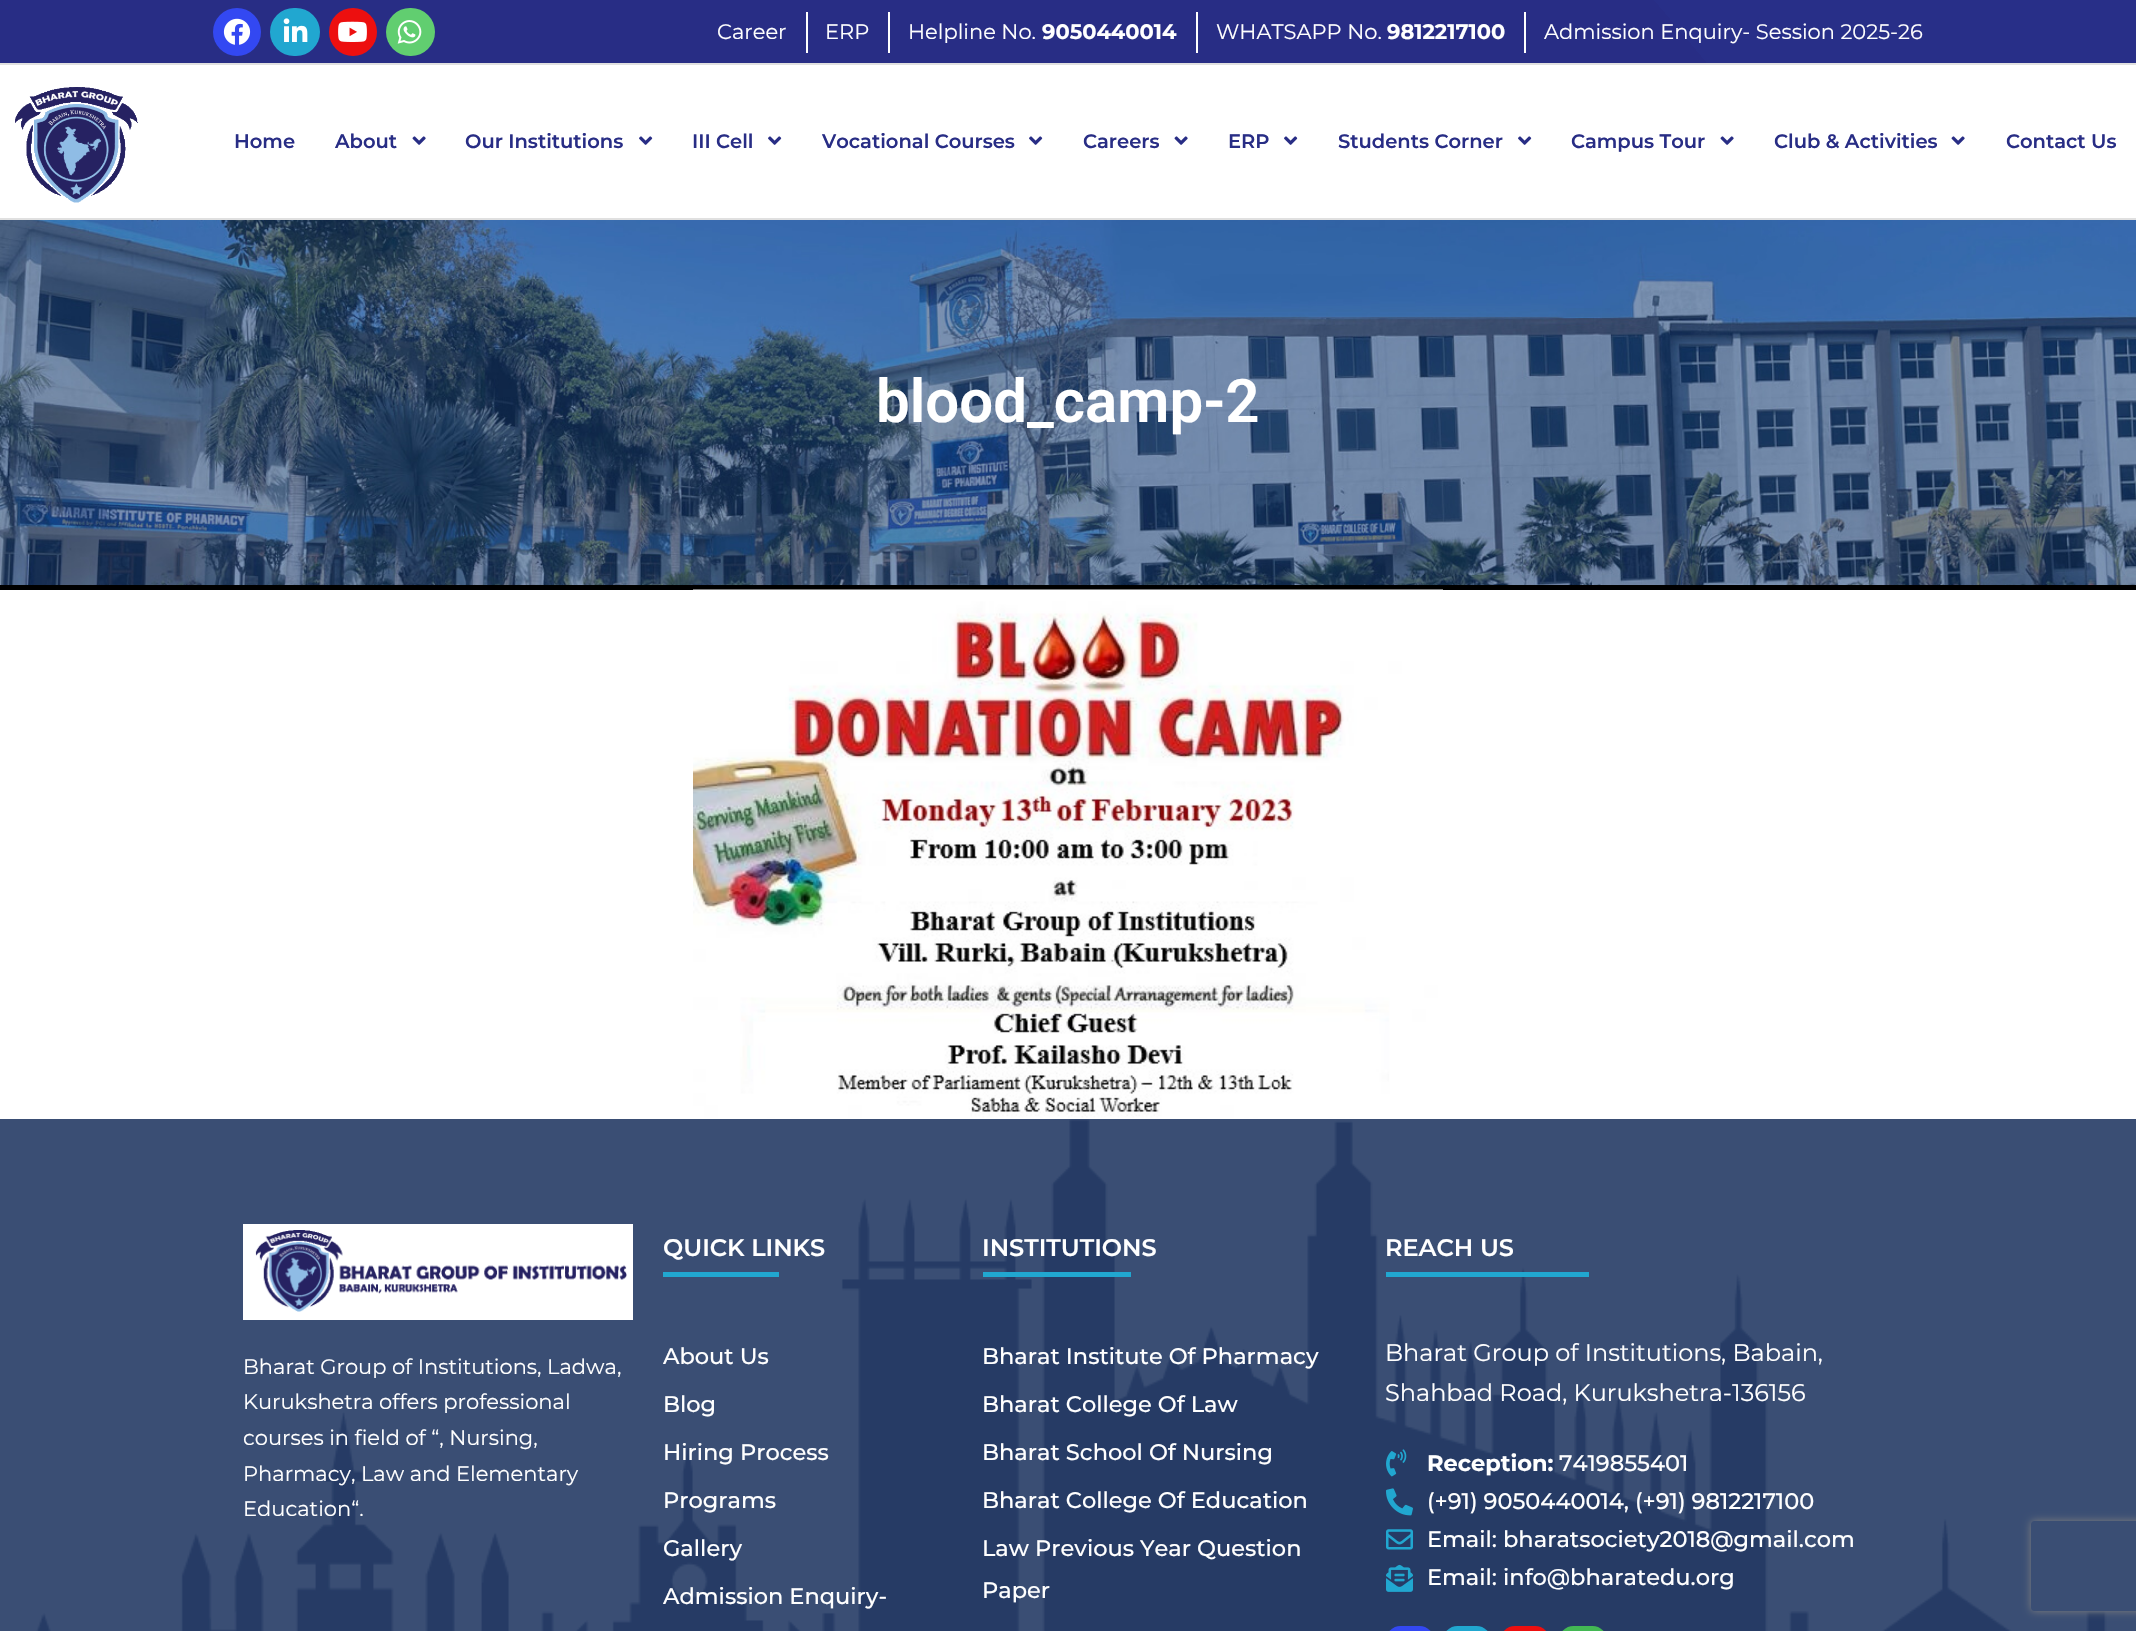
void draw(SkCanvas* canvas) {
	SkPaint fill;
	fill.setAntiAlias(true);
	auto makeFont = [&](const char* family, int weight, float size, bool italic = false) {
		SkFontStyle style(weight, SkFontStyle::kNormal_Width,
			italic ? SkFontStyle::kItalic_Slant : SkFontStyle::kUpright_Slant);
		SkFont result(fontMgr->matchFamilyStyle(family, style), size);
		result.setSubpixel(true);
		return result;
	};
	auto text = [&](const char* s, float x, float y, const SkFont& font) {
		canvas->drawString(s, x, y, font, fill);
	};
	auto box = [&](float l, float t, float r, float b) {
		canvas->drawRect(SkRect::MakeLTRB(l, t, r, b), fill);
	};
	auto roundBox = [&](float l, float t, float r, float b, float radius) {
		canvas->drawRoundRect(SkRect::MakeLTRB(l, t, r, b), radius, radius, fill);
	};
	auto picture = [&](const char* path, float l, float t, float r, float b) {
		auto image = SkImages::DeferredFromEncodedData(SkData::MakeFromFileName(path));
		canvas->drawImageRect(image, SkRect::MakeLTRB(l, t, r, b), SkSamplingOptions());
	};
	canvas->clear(0xFFFFFFFF);
	fill.setColor(0xFF3A4E74);
	box(0, 1119, 2136, 1631);
	{
		const SkColor colors[] = {0xFF282D85, 0xFF282F88};
		const float stops[] = {0.78f, 0.78f};
		const SkPoint ends[] = {{426, 570}, {1710, -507}};
		fill.setShader(SkGradientShader::MakeLinear(ends, colors, stops, 2, SkTileMode::kClamp));
		fill.setAlpha(255);
	}
	box(0, 0, 2136, 63);
	fill.setShader(nullptr);
	fill.setColor(0xFFE0E0E0);
	box(0, 63, 2136, 65);
	fill.setColor(0xFF3348F2);
	canvas->drawCircle(237, 32, 24, fill);
	picture("image0.png", 223, 18, 251, 45);
	fill.setColor(0xFF21A7D0);
	roundBox(270, 8, 320, 56, 24);
	picture("image1.png", 283, 18, 308, 42);
	fill.setColor(0xFFED0F0F);
	canvas->drawCircle(353, 32, 24, fill);
	picture("image2.png", 338, 21, 367, 42);
	fill.setColor(0xFF61CE70);
	roundBox(386, 8, 435, 56, 24);
	picture("image3.png", 397, 20, 422, 44);
	fill.setColor(0xFFFFFFFF);
	box(806, 12, 808, 53);
	box(888, 12, 890, 53);
	box(1196, 12, 1198, 53);
	box(1524, 12, 1526, 53);
	fill.setColor(0xFFE0E0E0);
	box(0, 218, 2136, 220);
	picture("image4.png", 15, 87, 138, 203);
	picture("image5.png", 412, 136, 426, 145);
	picture("image6.png", 639, 136, 653, 145);
	picture("image6.png", 768, 136, 782, 145);
	picture("image6.png", 1029, 136, 1043, 145);
	picture("image5.png", 1174, 136, 1188, 145);
	picture("image6.png", 1284, 136, 1298, 145);
	picture("image6.png", 1518, 136, 1532, 145);
	picture("image5.png", 1720, 136, 1734, 145);
	picture("image5.png", 1951, 136, 1965, 145);
	picture("image7.png", 0, 220, 2136, 585);
	fill.setColor(0xFF000000);
	box(0, 585, 2136, 590);
	picture("image8.png", 693, 589, 1443, 1118);
	picture("image9.png", 35, 1119, 2107, 1631);
	fill.setColor(0xFFFFFFFF);
	box(243, 1224, 633, 1320);
	picture("image10.png", 255, 1230, 627, 1312);
	fill.setColor(0xFF21A7D0);
	box(663, 1272, 779, 1277);
	box(983, 1272, 1131, 1277);
	box(1386, 1272, 1589, 1277);
	picture("image11.png", 1386, 1449, 1407, 1477);
	picture("image12.png", 1386, 1488, 1413, 1516);
	picture("image13.png", 1386, 1529, 1413, 1550);
	picture("image14.png", 1386, 1564, 1413, 1592);
	fill.setColor(0xFF3348F2);
	roundBox(1386, 1626, 1434, 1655, 24);
	fill.setColor(0xFF21A7D0);
	roundBox(1443, 1626, 1491, 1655, 24);
	fill.setColor(0xFFED0F0F);
	roundBox(1500, 1626, 1550, 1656, 25);
	fill.setColor(0xFF43B853);
	roundBox(1559, 1626, 1607, 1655, 24);
	canvas->save();
	canvas->clipPath(SkPathBuilder(SkPathFillType::kEvenOdd).moveTo(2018, 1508).lineTo(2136, 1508).lineTo(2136, 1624).lineTo(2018, 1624).close().moveTo(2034, 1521).lineTo(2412, 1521).cubicTo(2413.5f, 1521, 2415, 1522.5f, 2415, 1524).lineTo(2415, 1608).cubicTo(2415, 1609.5f, 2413.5f, 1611, 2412, 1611).lineTo(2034, 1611).cubicTo(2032.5f, 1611, 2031, 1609.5f, 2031, 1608).lineTo(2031, 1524).cubicTo(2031, 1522.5f, 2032.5f, 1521, 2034, 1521).close().detach(), true);
	fill.setColor(0xFF808080);
	fill.setMaskFilter(SkMaskFilter::MakeBlur(kNormal_SkBlurStyle, 4));
	canvas->drawRoundRect(SkRect::MakeLTRB(2031, 1521, 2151, 1611), 3, 3, fill);
	fill.setMaskFilter(nullptr);
	canvas->restore();
	auto font1 = makeFont("Montserrat", 400, 21);
	fill.setColor(0xFFFFFFFF);
	text("Career", 717, 39, font1);
	text("ERP", 825, 39, font1);
	text("Helpline No.", 908, 39, font1);
	auto font2 = makeFont("Montserrat", 700, 21);
	text("9050440014", 1042, 39, font2);
	text("WHATSAPP No.", 1216, 39, font1);
	text("9812217100", 1387, 39, font2);
	text("Admission Enquiry- Session 2025-26", 1544, 39, font1);
	auto font3 = makeFont("Montserrat", 600, 19.5f);
	fill.setColor(0xFF282D85);
	text("Home", 234, 148, font3);
	text("About", 335, 148, font3);
	text("Our Institutions", 465, 148, font3);
	text("III Cell", 692, 148, font3);
	text("Vocational Courses", 822, 148, font3);
	text("Careers", 1083, 148, font3);
	text("ERP", 1228, 148, font3);
	text("Students Corner", 1338, 148, font3);
	text("Campus Tour", 1571, 148, font3);
	text("Club & Activities", 1774, 148, font3);
	text("Contact Us", 2006, 148, font3);
	auto font4 = makeFont("Roboto", 600, 60);
	fill.setColor(0xFFFFFFFF);
	text("blood_camp-2", 876, 422, font4);
	text("Bharat Group of Institutions, Ladwa,", 243, 1374, font1);
	text("Kurukshetra offers professional", 243, 1409, font1);
	text("courses in field of “, Nursing,", 243, 1445, font1);
	text("Pharmacy, Law and Elementary", 243, 1481, font1);
	text("Education“.", 243, 1516, font1);
	auto font5 = makeFont("Montserrat", 600, 24);
	text("QUICK LINKS", 663, 1256, font5);
	auto font6 = makeFont("Montserrat", 500, 22.5f);
	text("About Us", 663, 1364, font6);
	text("Blog", 663, 1412, font6);
	text("Hiring Process", 663, 1460, font6);
	text("Programs", 663, 1508, font6);
	text("Gallery", 663, 1556, font6);
	text("Admission Enquiry-", 663, 1604, font6);
	text("INSTITUTIONS", 982, 1256, font5);
	text("Bharat Institute Of Pharmacy", 982, 1364, font6);
	text("Bharat College Of Law", 982, 1412, font6);
	text("Bharat School Of Nursing", 982, 1460, font6);
	text("Bharat College Of Education", 982, 1508, font6);
	text("Law Previous Year Question", 982, 1556, font6);
	text("Paper", 982, 1598, font6);
	text("REACH US", 1385, 1256, font5);
	auto font7 = makeFont("Montserrat", 400, 24);
	text("Bharat Group of Institutions, Babain,", 1385, 1361, font7);
	text("Shahbad Road, Kurukshetra-136156", 1385, 1401, font7);
	auto font8 = makeFont("Montserrat", 700, 22.5f);
	text("Reception:", 1427, 1471, font8);
	text("7419855401", 1559, 1471, font6);
	text("(+91) 9050440014, (+91) 9812217100", 1427, 1509, font6);
	text("Email: bharatsociety2018@gmail.com", 1427, 1547, font6);
	text("Email: info@bharatedu.org", 1427, 1585, font6);
}
